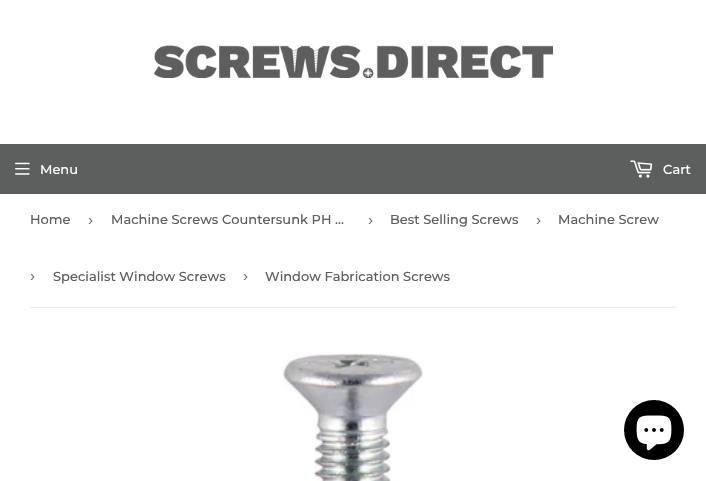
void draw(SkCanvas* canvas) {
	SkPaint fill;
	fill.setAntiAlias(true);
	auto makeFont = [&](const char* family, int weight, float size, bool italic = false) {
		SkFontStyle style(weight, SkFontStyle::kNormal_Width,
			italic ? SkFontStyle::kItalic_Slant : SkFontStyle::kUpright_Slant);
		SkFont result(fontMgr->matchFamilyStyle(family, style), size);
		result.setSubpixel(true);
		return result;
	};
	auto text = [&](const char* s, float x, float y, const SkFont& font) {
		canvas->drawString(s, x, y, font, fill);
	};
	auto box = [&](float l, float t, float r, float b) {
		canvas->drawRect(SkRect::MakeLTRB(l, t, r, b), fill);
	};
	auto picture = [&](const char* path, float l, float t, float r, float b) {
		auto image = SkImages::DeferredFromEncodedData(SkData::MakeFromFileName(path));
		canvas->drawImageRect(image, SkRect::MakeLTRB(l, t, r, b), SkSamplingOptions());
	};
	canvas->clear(0xFFFFFFFF);
	picture("image0.png", 153, 45, 553, 78);
	fill.setColor(0xFF5D5E5E);
	box(0, 144, 706, 194);
	picture("image1.png", 15, 162, 30, 175);
	picture("image2.png", 630, 160, 653, 178);
	fill.setColor(0xFFECECEC);
	box(30, 307, 676, 308);
	picture("image3.png", 281, 353, 425, 481);
	fill.setColor(0xFF000000);
	canvas->drawCircle(654, 430, 30, fill);
	picture("image4.png", 636, 415, 672, 451);
	auto font1 = makeFont("Montserrat", 500, 13);
	fill.setColor(0xFFFFFFFF);
	text("Menu", 40, 174, font1);
	text("Cart", 663, 174, font1);
	fill.setColor(0xFF5D5E5E);
	text("Home", 30, 224, font1);
	auto font2 = makeFont("Liberation Sans", 400, 15);
	fill.setColor(0xFF767676);
	text("›", 88, 225, font2);
	fill.setColor(0xFF5D5E5E);
	text("Machine Screws Countersunk PH …", 111, 224, font1);
	fill.setColor(0xFF767676);
	text("›", 368, 225, font2);
	fill.setColor(0xFF5D5E5E);
	text("Best Selling Screws", 390, 224, font1);
	fill.setColor(0xFF767676);
	text("›", 536, 225, font2);
	fill.setColor(0xFF5D5E5E);
	text("Machine Screw", 558, 224, font1);
	fill.setColor(0xFF767676);
	text("›", 30, 281, font2);
	fill.setColor(0xFF5D5E5E);
	text("Specialist Window Screws", 53, 281, font1);
	fill.setColor(0xFF767676);
	text("›", 243, 281, font2);
	fill.setColor(0xFF5D5E5E);
	text("Window Fabrication Screws", 265, 281, font1);
}
